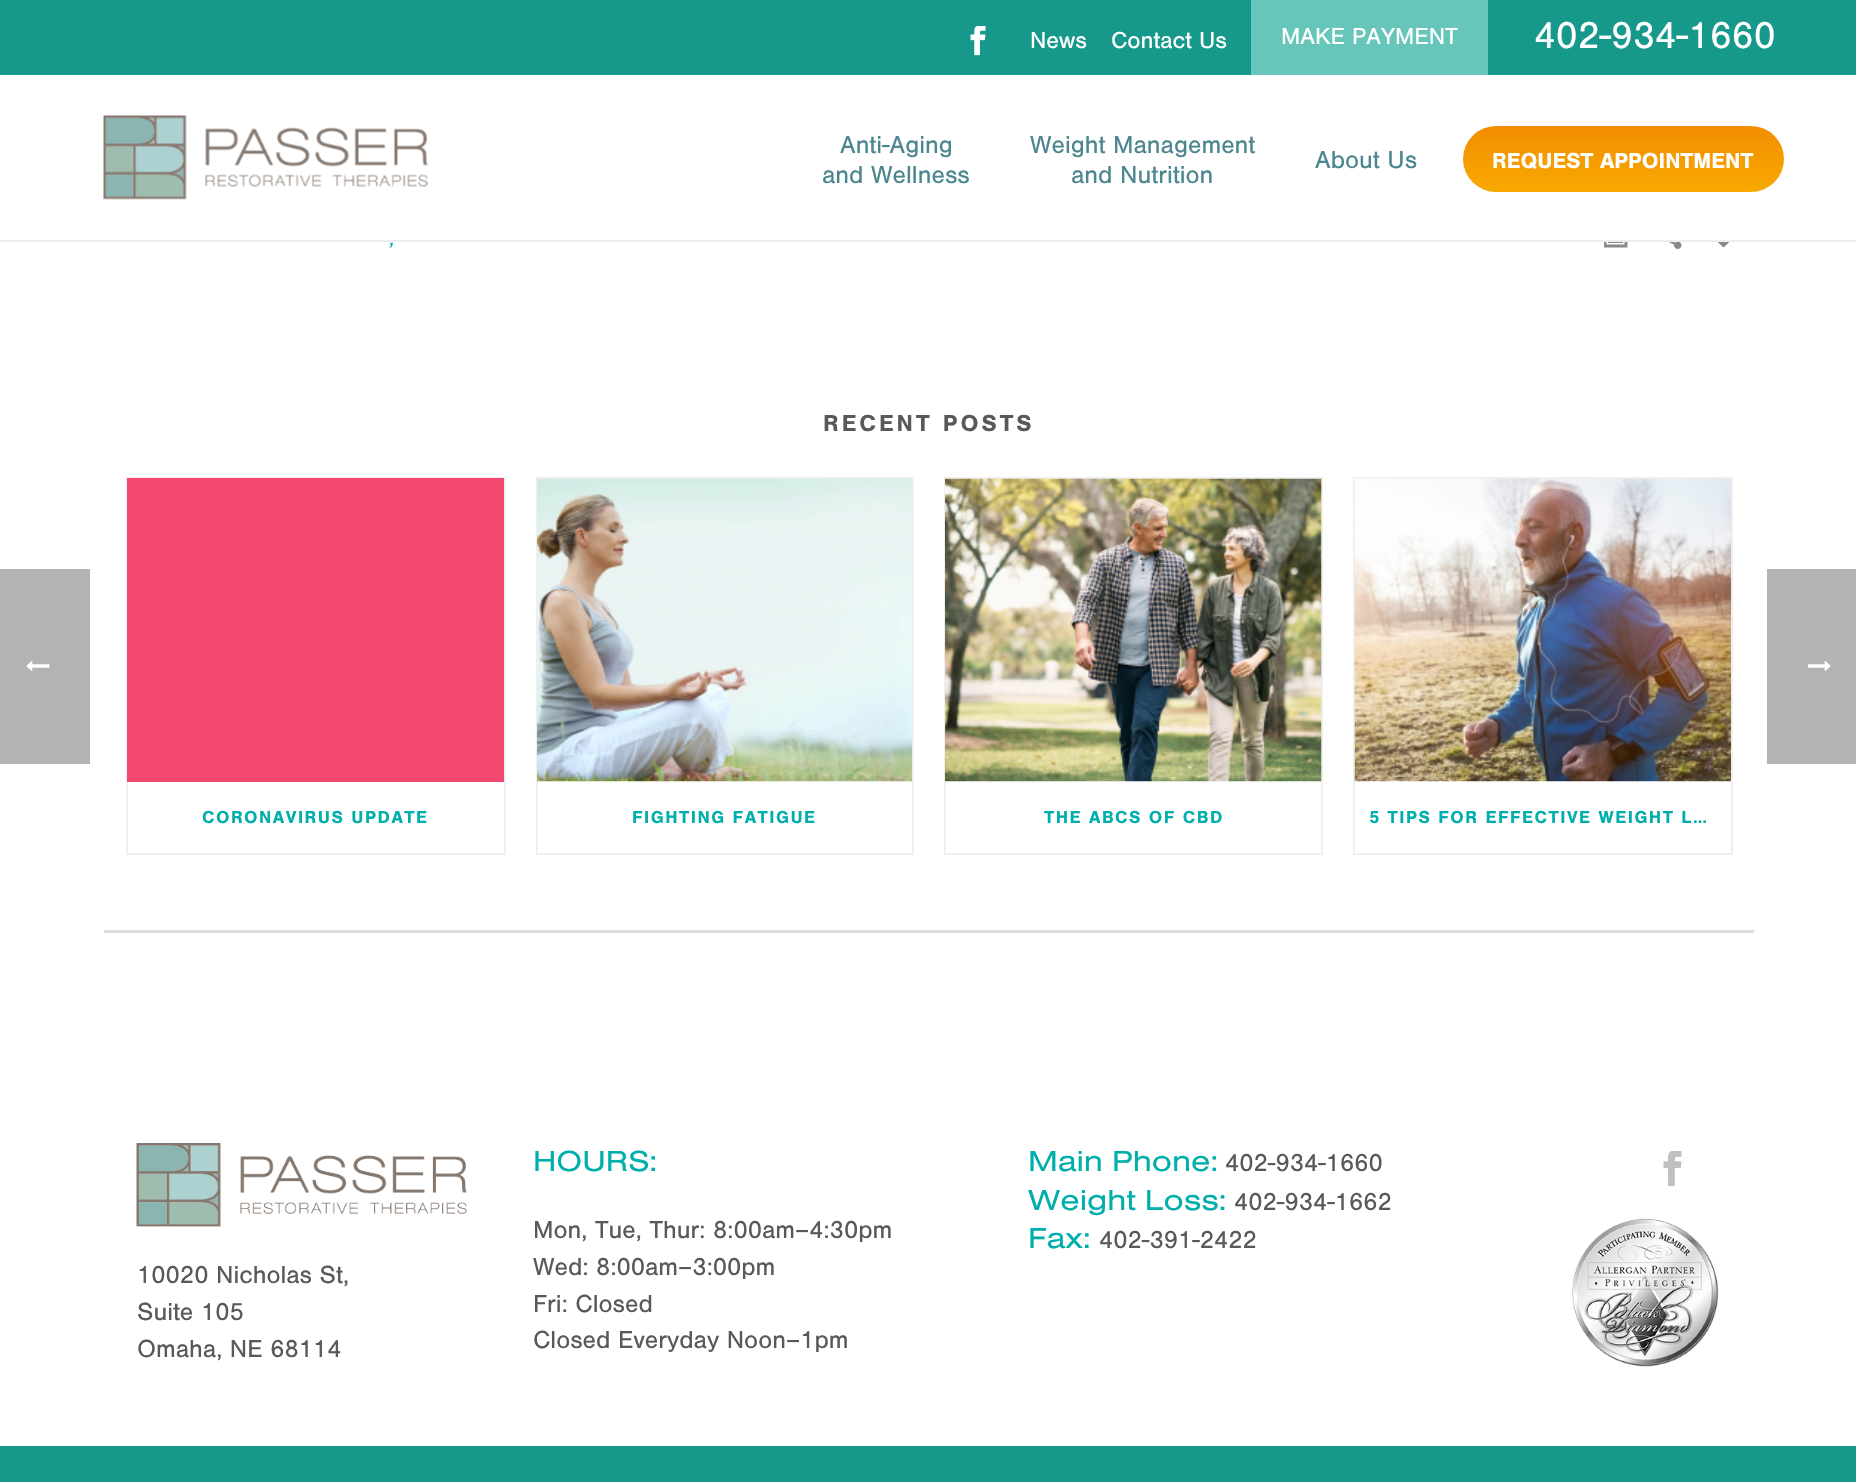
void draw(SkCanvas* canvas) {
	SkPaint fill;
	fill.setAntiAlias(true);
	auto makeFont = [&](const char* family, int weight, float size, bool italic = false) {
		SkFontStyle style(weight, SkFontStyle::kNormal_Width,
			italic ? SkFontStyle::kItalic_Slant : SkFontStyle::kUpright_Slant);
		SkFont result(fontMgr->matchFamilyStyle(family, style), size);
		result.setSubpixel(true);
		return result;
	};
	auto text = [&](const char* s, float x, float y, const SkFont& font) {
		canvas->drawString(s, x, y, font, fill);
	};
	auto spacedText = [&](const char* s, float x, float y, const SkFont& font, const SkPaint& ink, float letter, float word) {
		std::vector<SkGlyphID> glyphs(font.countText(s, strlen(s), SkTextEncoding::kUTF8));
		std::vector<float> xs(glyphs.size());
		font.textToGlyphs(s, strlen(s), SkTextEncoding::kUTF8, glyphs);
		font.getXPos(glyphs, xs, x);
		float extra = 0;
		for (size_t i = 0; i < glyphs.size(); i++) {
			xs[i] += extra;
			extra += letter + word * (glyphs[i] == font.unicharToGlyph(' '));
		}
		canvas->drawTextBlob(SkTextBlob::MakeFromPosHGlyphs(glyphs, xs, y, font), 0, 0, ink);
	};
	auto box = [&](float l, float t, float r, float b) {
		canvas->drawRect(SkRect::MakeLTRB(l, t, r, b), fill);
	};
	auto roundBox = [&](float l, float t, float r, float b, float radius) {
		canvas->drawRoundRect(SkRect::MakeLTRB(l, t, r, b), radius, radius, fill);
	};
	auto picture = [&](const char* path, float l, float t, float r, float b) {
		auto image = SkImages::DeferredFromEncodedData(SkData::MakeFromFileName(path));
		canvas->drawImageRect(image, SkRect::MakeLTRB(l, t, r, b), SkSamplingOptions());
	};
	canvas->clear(0xFFFFFFFF);
	fill.setColor(0xFFB3B3B3);
	box(0, 569, 90, 764);
	picture("image0.png", 26, 661, 50, 671);
	fill.setColor(0xFF16998B);
	box(0, 0, 1856, 75);
	picture("image1.png", 970, 26, 986, 56);
	fill.setColor(0xFF66C6BA);
	box(1251, 0, 1488, 75);
	fill.setColor(0xFFEDEDED);
	box(0, 240, 1856, 242);
	picture("image2.png", 103, 115, 428, 200);
	{
		const SkColor colors[] = {0xFFF28D00, 0xFFF8A900};
		const float stops[] = {0, 1};
		const SkPoint ends[] = {{1623, 126}, {1623, 192}};
		fill.setShader(SkGradientShader::MakeLinear(ends, colors, stops, 2, SkTileMode::kClamp));
		fill.setAlpha(255);
	}
	roundBox(1463, 126, 1784, 192, 33);
	picture("image3.png", 1604, 242, 1628, 248);
	picture("image4.png", 1669, 242, 1682, 249);
	picture("image5.png", 1717, 242, 1730, 248);
	fill.setShader(nullptr);
	fill.setColor(0xFFDDDDDD);
	box(104, 930, 1754, 933);
	fill.setStyle(SkPaint::kStroke_Style);
	fill.setStrokeWidth(2);
	fill.setColor(0xFFEFEFEF);
	canvas->drawRect(SkRect::MakeLTRB(127, 478, 505, 854), fill);
	fill.setStyle(SkPaint::kFill_Style);
	fill.setColor(0xFFF2486F);
	box(127, 478, 504, 782);
	fill.setStyle(SkPaint::kStroke_Style);
	fill.setColor(0xFFEFEFEF);
	canvas->drawRect(SkRect::MakeLTRB(537, 478, 913, 854), fill);
	picture("image6.png", 537, 478, 912, 782);
	canvas->drawRect(SkRect::MakeLTRB(945, 478, 1322, 854), fill);
	picture("image7.png", 945, 478, 1322, 782);
	canvas->drawRect(SkRect::MakeLTRB(1354, 478, 1732, 854), fill);
	picture("image8.png", 1354, 478, 1731, 782);
	picture("image9.png", 136, 1143, 467, 1227);
	picture("image10.png", 1663, 1151, 1682, 1186);
	picture("image11.png", 1572, 1218, 1719, 1367);
	fill.setStyle(SkPaint::kFill_Style);
	fill.setColor(0xFF16998B);
	box(0, 1446, 1856, 1482);
	fill.setColor(0xFFB3B3B3);
	box(1767, 569, 1856, 764);
	picture("image12.png", 1808, 661, 1831, 671);
	auto font1 = makeFont("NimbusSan", 400, 24);
	fill.setColor(0xFFFFFFFF);
	text("News", 1030, 48, font1);
	text("Contact Us", 1111, 48, font1);
	text("MAKE PAYMENT", 1281, 44, font1);
	auto font2 = makeFont("NimbusSan", 400, 39);
	text("402-934-1660", 1534, 48, font2);
	auto font3 = makeFont("NimbusSan", 400, 25.5f);
	fill.setColor(0xFF4C868F);
	text("Anti-Aging", 840, 153, font3);
	text("and Wellness", 822, 183, font3);
	text("Weight Management", 1030, 153, font3);
	text("and Nutrition", 1071, 183, font3);
	text("About Us", 1315, 168, font3);
	auto font4 = makeFont("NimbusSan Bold", 700, 22.5f);
	fill.setColor(0xFFFFFFFF);
	text("REQUEST APPOINTMENT", 1492, 168, font4);
	auto font5 = makeFont("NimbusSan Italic", 400, 21, true);
	fill.setColor(0xFF00AFAB);
	text(",", 390, 245, font5);
	auto font6 = makeFont("NimbusSan Bold", 700, 24);
	fill.setColor(0xFF58595B);
	spacedText("RECENT POSTS", 823, 431, font6, fill, 3, 0);
	auto font7 = makeFont("NimbusSan Bold", 700, 18);
	fill.setColor(0xFF00AFAB);
	spacedText("CORONAVIRUS UPDATE", 202, 823, font7, fill, 1.5f, 0);
	spacedText("FIGHTING FATIGUE", 632, 823, font7, fill, 1.5f, 0);
	spacedText("THE ABCS OF CBD", 1044, 823, font7, fill, 1.5f, 0);
	spacedText("5 TIPS FOR EFFECTIVE WEIGHT L…", 1369, 823, font7, fill, 1.5f, 0);
	fill.setColor(0xFF58595B);
	text("10020 Nicholas St,", 137, 1283, font3);
	text("Suite 105", 137, 1320, font3);
	text("Omaha, NE 68114", 137, 1357, font3);
	auto font8 = makeFont("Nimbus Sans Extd", 400, 30);
	fill.setColor(0xFF00AFAB);
	text("HOURS:", 533, 1171, font8);
	fill.setColor(0xFF58595B);
	text("Mon, Tue, Thur: 8:00am–4:30pm", 533, 1238, font3);
	text("Wed: 8:00am–3:00pm", 533, 1275, font3);
	text("Fri: Closed", 533, 1312, font3);
	text("Closed Everyday Noon–1pm", 533, 1348, font3);
	fill.setColor(0xFF00AFAB);
	text("Main Phone:", 1028, 1171, font8);
	fill.setColor(0xFF58595B);
	text("402-934-1660", 1225, 1171, font3);
	fill.setColor(0xFF00AFAB);
	text("Weight Loss:", 1028, 1210, font8);
	fill.setColor(0xFF58595B);
	text("402-934-1662", 1234, 1210, font3);
	fill.setColor(0xFF00AFAB);
	text("Fax:", 1028, 1248, font8);
	fill.setColor(0xFF58595B);
	text("402-391-2422", 1099, 1248, font3);
}
